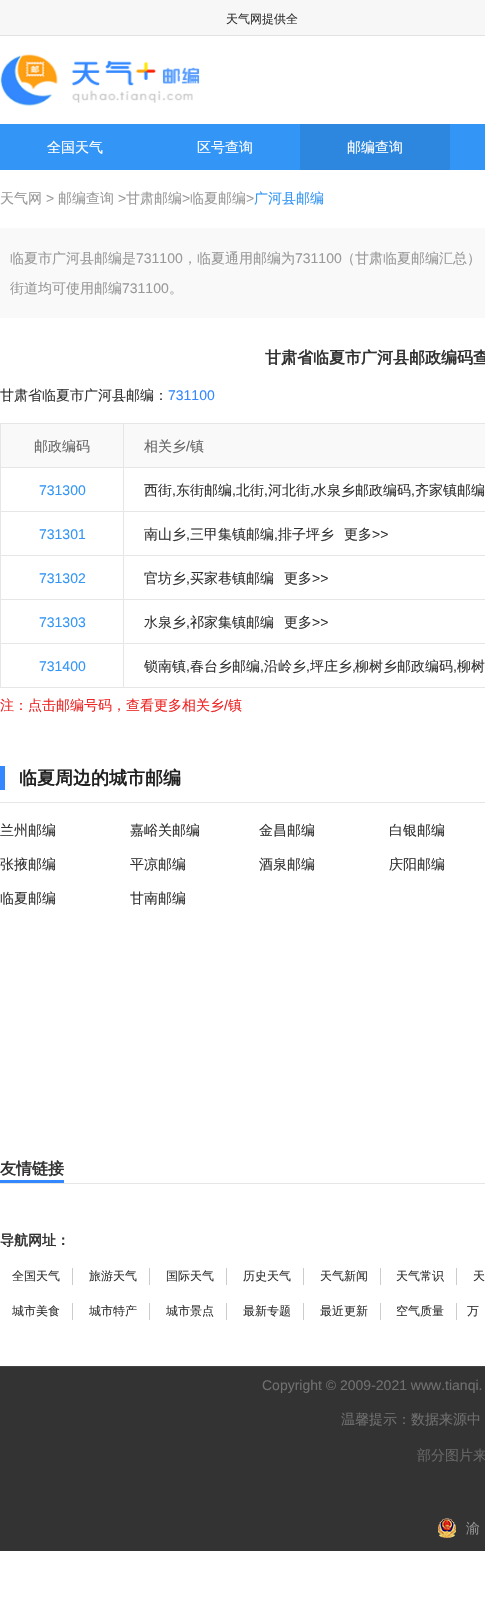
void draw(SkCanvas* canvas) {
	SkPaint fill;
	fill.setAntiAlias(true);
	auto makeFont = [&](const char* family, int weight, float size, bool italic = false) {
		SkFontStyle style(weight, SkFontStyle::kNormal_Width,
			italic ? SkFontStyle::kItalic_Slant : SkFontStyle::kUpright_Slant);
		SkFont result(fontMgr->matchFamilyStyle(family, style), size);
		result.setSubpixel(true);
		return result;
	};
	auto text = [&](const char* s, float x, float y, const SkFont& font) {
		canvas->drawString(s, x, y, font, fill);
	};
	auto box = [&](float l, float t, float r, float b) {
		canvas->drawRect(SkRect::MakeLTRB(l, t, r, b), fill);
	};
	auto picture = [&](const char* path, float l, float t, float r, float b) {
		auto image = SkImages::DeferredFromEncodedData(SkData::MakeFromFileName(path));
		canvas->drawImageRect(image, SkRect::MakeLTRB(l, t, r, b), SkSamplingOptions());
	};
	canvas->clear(0xFFFFFFFF);
	fill.setColor(0xFFF7F7F7);
	box(0, 0, 485, 35);
	fill.setColor(0xFFE3E3E3);
	box(0, 35, 485, 36);
	picture("image0.png", 0, 54, 200, 106);
	fill.setColor(0xFF3396F7);
	box(0, 124, 485, 170);
	fill.setColor(0xFF2E87DE);
	box(300, 124, 450, 170);
	fill.setColor(0xFFF9F9F9);
	box(0, 228, 485, 318);
	fill.setColor(0xFFE6E6E6);
	box(0, 423, 485, 424);
	box(0, 423, 1, 688);
	fill.setColor(0xFFF9F9F9);
	box(1, 424, 485, 467);
	fill.setColor(0xFFE6E6E6);
	box(1, 467, 485, 468);
	box(1, 511, 485, 512);
	box(1, 555, 485, 556);
	box(1, 599, 485, 600);
	box(1, 643, 485, 644);
	box(1, 687, 485, 688);
	box(123, 424, 124, 688);
	box(0, 802, 485, 803);
	fill.setColor(0xFF3388FF);
	box(0, 766, 5, 790);
	fill.setColor(0xFFE6E6E6);
	box(0, 1183, 485, 1184);
	fill.setColor(0xFF3388FF);
	box(0, 1180, 64, 1183);
	fill.setColor(0xFFCCCCCC);
	box(72, 1268, 73, 1285);
	box(149, 1268, 150, 1285);
	box(226, 1268, 227, 1285);
	box(303, 1268, 304, 1285);
	box(380, 1268, 381, 1285);
	box(456, 1268, 457, 1285);
	box(72, 1303, 73, 1320);
	box(149, 1303, 150, 1320);
	box(226, 1303, 227, 1320);
	box(303, 1303, 304, 1320);
	box(380, 1303, 381, 1320);
	box(456, 1303, 457, 1320);
	fill.setColor(0xFF333333);
	box(0, 1367, 485, 1551);
	fill.setColor(0xFF444444);
	box(0, 1366, 485, 1367);
	picture("image1.png", 438, 1518, 456, 1538);
	auto font1 = makeFont("WenQuanYi Zen Hei", 500, 12);
	fill.setColor(0xFF333333);
	text("天气网提供全", 226, 23, font1);
	auto font2 = makeFont("WenQuanYi Zen Hei", 500, 14);
	fill.setColor(0xFFFFFFFF);
	text("全国天气", 47, 152, font2);
	text("区号查询", 197, 152, font2);
	text("邮编查询", 347, 152, font2);
	fill.setColor(0xFF999999);
	text("天气网", 0, 203, font2);
	auto font3 = makeFont("Liberation Sans", 400, 14);
	text(">", 46, 203, font3);
	text("邮编查询", 58, 203, font2);
	text(">", 118, 203, font3);
	text("甘肃邮编", 126, 203, font2);
	text(">", 182, 203, font3);
	text("临夏邮编", 190, 203, font2);
	text(">", 246, 203, font3);
	fill.setColor(0xFF3396F7);
	text("广河县邮编", 254, 203, font2);
	fill.setColor(0xFF999999);
	text("临夏市广河县邮编是", 10, 263, font2);
	text("731100", 136, 263, font3);
	text("，临夏通用邮编为", 183, 263, font2);
	text("731100", 295, 263, font3);
	text("（甘肃临夏邮编汇总）", 341, 263, font2);
	text("街道均可使用邮编", 10, 293, font2);
	text("731100", 122, 293, font3);
	text("。", 169, 293, font2);
	auto font4 = makeFont("WenQuanYi Zen Hei", 700, 16);
	fill.setColor(0xFF333333);
	text("甘肃省临夏市广河县邮政编码查", 265, 363, font4);
	text("甘肃省临夏市广河县邮编：", 0, 400, font2);
	fill.setColor(0xFF3388FF);
	text("731100", 168, 400, font3);
	fill.setColor(0xFF666666);
	text("邮政编码", 34, 451, font2);
	text("相关乡", 144, 451, font2);
	text("/", 186, 451, font3);
	text("镇", 190, 451, font2);
	fill.setColor(0xFF3396F7);
	text("731300", 39, 495, font3);
	fill.setColor(0xFF333333);
	text("西街", 144, 495, font2);
	text(",", 172, 495, font3);
	text("东街邮编", 176, 495, font2);
	text(",", 232, 495, font3);
	text("北街", 236, 495, font2);
	text(",", 264, 495, font3);
	text("河北街", 268, 495, font2);
	text(",", 310, 495, font3);
	text("水泉乡邮政编码", 313, 495, font2);
	text(",", 411, 495, font3);
	text("齐家镇邮编", 415, 495, font2);
	fill.setColor(0xFF3396F7);
	text("731301", 39, 539, font3);
	fill.setColor(0xFF333333);
	text("南山乡", 144, 539, font2);
	text(",", 186, 539, font3);
	text("三甲集镇邮编", 190, 539, font2);
	text(",", 274, 539, font3);
	text("排子坪乡", 278, 539, font2);
	text("更多", 344, 539, font2);
	text(">>", 372, 539, font3);
	fill.setColor(0xFF3396F7);
	text("731302", 39, 583, font3);
	fill.setColor(0xFF333333);
	text("官坊乡", 144, 583, font2);
	text(",", 186, 583, font3);
	text("买家巷镇邮编", 190, 583, font2);
	text("更多", 284, 583, font2);
	text(">>", 312, 583, font3);
	fill.setColor(0xFF3396F7);
	text("731303", 39, 627, font3);
	fill.setColor(0xFF333333);
	text("水泉乡", 144, 627, font2);
	text(",", 186, 627, font3);
	text("祁家集镇邮编", 190, 627, font2);
	text("更多", 284, 627, font2);
	text(">>", 312, 627, font3);
	fill.setColor(0xFF3396F7);
	text("731400", 39, 671, font3);
	fill.setColor(0xFF333333);
	text("锁南镇", 144, 671, font2);
	text(",", 186, 671, font3);
	text("春台乡邮编", 190, 671, font2);
	text(",", 260, 671, font3);
	text("沿岭乡", 264, 671, font2);
	text(",", 306, 671, font3);
	text("坪庄乡", 310, 671, font2);
	text(",", 352, 671, font3);
	text("柳树乡邮政编码", 355, 671, font2);
	text(",", 453, 671, font3);
	text("柳树", 457, 671, font2);
	fill.setColor(0xFFED2424);
	text("注：点击邮编号码，查看更多相关乡", 0, 710, font2);
	text("/", 224, 710, font3);
	text("镇", 228, 710, font2);
	auto font5 = makeFont("WenQuanYi Zen Hei", 700, 18);
	fill.setColor(0xFF222222);
	text("临夏周边的城市邮编", 19, 784, font5);
	fill.setColor(0xFF333333);
	text("兰州邮编", 0, 835, font2);
	text("嘉峪关邮编", 130, 835, font2);
	text("金昌邮编", 259, 835, font2);
	text("白银邮编", 389, 835, font2);
	text("张掖邮编", 0, 869, font2);
	text("平凉邮编", 130, 869, font2);
	text("酒泉邮编", 259, 869, font2);
	text("庆阳邮编", 389, 869, font2);
	text("临夏邮编", 0, 903, font2);
	text("甘南邮编", 130, 903, font2);
	text("友情链接", 0, 1174, font4);
	auto font6 = makeFont("WenQuanYi Zen Hei", 700, 14);
	text("导航网址：", 0, 1245, font6);
	text("全国天气", 12, 1280, font1);
	text("旅游天气", 89, 1280, font1);
	text("国际天气", 166, 1280, font1);
	text("历史天气", 243, 1280, font1);
	text("天气新闻", 320, 1280, font1);
	text("天气常识", 396, 1280, font1);
	text("天", 473, 1280, font1);
	text("城市美食", 12, 1315, font1);
	text("城市特产", 89, 1315, font1);
	text("城市景点", 166, 1315, font1);
	text("最新专题", 243, 1315, font1);
	text("最近更新", 320, 1315, font1);
	text("空气质量", 396, 1315, font1);
	text("万", 467, 1315, font1);
	fill.setColor(0xFF6F6F6F);
	text("Copyright © 2009-2021 www.tianqi.", 262, 1390, font3);
	text("温馨提示：数据来源中", 341, 1424, font2);
	fill.setColor(0xFF666666);
	text("部分图片来", 417, 1460, font2);
	fill.setColor(0xFF939393);
	text("渝", 466, 1533, font2);
}
